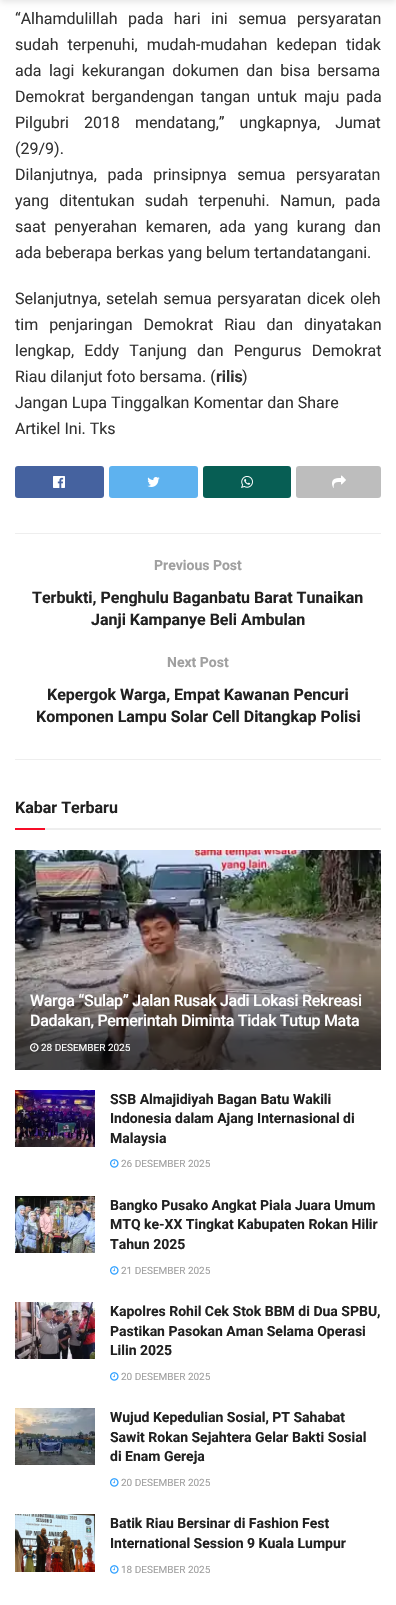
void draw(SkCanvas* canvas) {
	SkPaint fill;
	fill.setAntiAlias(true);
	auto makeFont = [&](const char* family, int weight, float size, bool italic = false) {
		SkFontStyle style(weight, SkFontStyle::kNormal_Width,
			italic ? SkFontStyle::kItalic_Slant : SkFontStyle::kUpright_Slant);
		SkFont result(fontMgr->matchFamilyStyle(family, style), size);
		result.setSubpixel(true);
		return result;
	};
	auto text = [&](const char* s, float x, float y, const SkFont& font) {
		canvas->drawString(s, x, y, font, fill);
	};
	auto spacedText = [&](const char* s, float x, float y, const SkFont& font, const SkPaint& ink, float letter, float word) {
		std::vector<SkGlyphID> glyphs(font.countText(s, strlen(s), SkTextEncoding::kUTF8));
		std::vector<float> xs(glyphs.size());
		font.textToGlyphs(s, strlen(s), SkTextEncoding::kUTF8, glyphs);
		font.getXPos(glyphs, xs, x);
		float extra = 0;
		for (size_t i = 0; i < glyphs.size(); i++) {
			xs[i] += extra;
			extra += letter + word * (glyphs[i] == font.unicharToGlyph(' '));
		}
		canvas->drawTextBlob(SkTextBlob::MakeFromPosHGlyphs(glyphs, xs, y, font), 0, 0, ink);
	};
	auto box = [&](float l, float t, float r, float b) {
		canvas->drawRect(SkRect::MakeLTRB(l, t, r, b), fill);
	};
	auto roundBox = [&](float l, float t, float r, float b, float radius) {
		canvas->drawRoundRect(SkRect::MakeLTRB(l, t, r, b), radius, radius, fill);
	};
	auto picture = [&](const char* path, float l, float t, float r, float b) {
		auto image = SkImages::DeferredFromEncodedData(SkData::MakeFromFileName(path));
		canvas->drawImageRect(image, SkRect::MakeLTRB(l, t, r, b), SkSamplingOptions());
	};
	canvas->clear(0xFFFFFFFF);
	fill.setColor(0x1A000000);
	fill.setMaskFilter(SkMaskFilter::MakeBlur(kNormal_SkBlurStyle, 3));
	canvas->drawRect(SkRect::MakeLTRB(0, -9, 396, 2), fill);
	fill.setMaskFilter(nullptr);
	fill.setColor(0xFF45629F);
	roundBox(15, 466, 104, 498, 3);
	picture("image0.png", 53, 476, 65, 488);
	fill.setColor(0xFF5EB2EF);
	roundBox(109, 466, 198, 498, 3);
	picture("image1.png", 147, 477, 160, 487);
	fill.setColor(0xFF075E54);
	roundBox(203, 466, 291, 498, 3);
	picture("image2.png", 241, 476, 253, 488);
	fill.setColor(0xFFBDBDBD);
	roundBox(296, 466, 381, 498, 3);
	picture("image3.png", 332, 475, 346, 488);
	fill.setColor(0xFFEEEEEE);
	box(15, 533, 381, 534);
	box(15, 759, 381, 760);
	box(45, 828, 381, 830);
	fill.setColor(0xFFF70D28);
	box(15, 828, 45, 830);
	picture("image4.png", 15, 850, 381, 1070);
	picture("image5.png", 30, 1043, 39, 1052);
	picture("image6.png", 15, 1090, 95, 1147);
	picture("image7.png", 110, 1159, 119, 1168);
	picture("image8.png", 15, 1196, 95, 1253);
	picture("image7.png", 110, 1266, 119, 1275);
	picture("image9.png", 15, 1302, 95, 1359);
	picture("image7.png", 110, 1372, 119, 1381);
	picture("image10.png", 15, 1408, 95, 1465);
	picture("image7.png", 110, 1478, 119, 1487);
	picture("image11.png", 15, 1514, 95, 1572);
	picture("image7.png", 110, 1565, 119, 1574);
	auto font1 = makeFont("Roboto", 400, 16);
	fill.setColor(0xFF333333);
	spacedText("“Alhamdulillah pada hari ini semua persyaratan", 15, 24, font1, fill, 0, 6.5f);
	spacedText("sudah terpenuhi, mudah-mudahan kedepan tidak", 15, 50, font1, fill, 0, 5);
	spacedText("ada lagi kekurangan dokumen dan bisa bersama", 15, 76, font1, fill, 0, 3.5f);
	spacedText("Demokrat bergandengan tangan untuk maju pada", 15, 102, font1, fill, 0, 3);
	spacedText("Pilgubri 2018 mendatang,” ungkapnya, Jumat", 15, 128, font1, fill, 0, 11);
	text("(29/9).", 15, 154, font1);
	spacedText("Dilanjutnya, pada prinsipnya semua persyaratan", 15, 180, font1, fill, 0, 6.5f);
	spacedText("yang ditentukan sudah terpenuhi. Namun, pada", 15, 206, font1, fill, 0, 6.25f);
	spacedText("saat penyerahan kemaren, ada yang kurang dan", 15, 232, font1, fill, 0, 4.5f);
	text("ada beberapa berkas yang belum tertandatangani.", 15, 258, font1);
	spacedText("Selanjutnya, setelah semua persyaratan dicek oleh", 15, 304, font1, fill, 0, 1.5f);
	spacedText("tim penjaringan Demokrat Riau dan dinyatakan", 15, 330, font1, fill, 0, 7);
	spacedText("lengkap, Eddy Tanjung dan Pengurus Demokrat", 15, 356, font1, fill, 0, 6.25f);
	text("Riau dilanjut foto bersama. (", 15, 382, font1);
	auto font2 = makeFont("Roboto", 700, 16);
	text("rilis", 216, 382, font2);
	text(")", 242, 382, font1);
	text("Jangan Lupa Tinggalkan Komentar dan Share", 15, 408, font1);
	text("Artikel Ini. Tks", 15, 434, font1);
	auto font3 = makeFont("Roboto", 700, 14);
	fill.setColor(0xFFA0A0A0);
	text("Previous Post", 154, 570, font3);
	fill.setColor(0xFF212121);
	text("Terbukti, Penghulu Baganbatu Barat Tunaikan", 32, 603, font2);
	text("Janji Kampanye Beli Ambulan", 91, 625, font2);
	fill.setColor(0xFFA0A0A0);
	text("Next Post", 167, 667, font3);
	fill.setColor(0xFF212121);
	text("Kepergok Warga, Empat Kawanan Pencuri", 47, 700, font2);
	text("Komponen Lampu Solar Cell Ditangkap Polisi", 36, 722, font2);
	text("Kabar Terbaru", 15, 813, font2);
	auto font4 = makeFont("Roboto", 500, 16);
	fill.setColor(0xFFFFFFFF);
	spacedText("Warga “Sulap” Jalan Rusak Jadi Lokasi Rekreasi", 30, 1006, font4, fill, -0.3f, 0);
	spacedText("Dadakan, Pemerintah Diminta Tidak Tutup Mata", 30, 1026, font4, fill, -0.3f, 0);
	auto font5 = makeFont("Roboto", 400, 10);
	text("28 DESEMBER 2025", 41, 1051, font5);
	fill.setColor(0xFF212121);
	text("SSB Almajidiyah Bagan Batu Wakili", 110, 1104, font3);
	text("Indonesia dalam Ajang Internasional di", 110, 1123, font3);
	text("Malaysia", 110, 1143, font3);
	fill.setColor(0xFFA0A0A0);
	text("26 DESEMBER 2025", 121, 1167, font5);
	fill.setColor(0xFF212121);
	text("Bangko Pusako Angkat Piala Juara Umum", 110, 1210, font3);
	text("MTQ ke-XX Tingkat Kabupaten Rokan Hilir", 110, 1229, font3);
	text("Tahun 2025", 110, 1249, font3);
	fill.setColor(0xFFA0A0A0);
	text("21 DESEMBER 2025", 121, 1274, font5);
	fill.setColor(0xFF212121);
	text("Kapolres Rohil Cek Stok BBM di Dua SPBU,", 110, 1316, font3);
	text("Pastikan Pasokan Aman Selama Operasi", 110, 1336, font3);
	text("Lilin 2025", 110, 1355, font3);
	fill.setColor(0xFFA0A0A0);
	text("20 DESEMBER 2025", 121, 1380, font5);
	fill.setColor(0xFF212121);
	text("Wujud Kepedulian Sosial, PT Sahabat", 110, 1422, font3);
	text("Sawit Rokan Sejahtera Gelar Bakti Sosial", 110, 1442, font3);
	text("di Enam Gereja", 110, 1461, font3);
	fill.setColor(0xFFA0A0A0);
	text("20 DESEMBER 2025", 121, 1486, font5);
	fill.setColor(0xFF212121);
	text("Batik Riau Bersinar di Fashion Fest", 110, 1528, font3);
	text("International Session 9 Kuala Lumpur", 110, 1548, font3);
	fill.setColor(0xFFA0A0A0);
	text("18 DESEMBER 2025", 121, 1573, font5);
}
